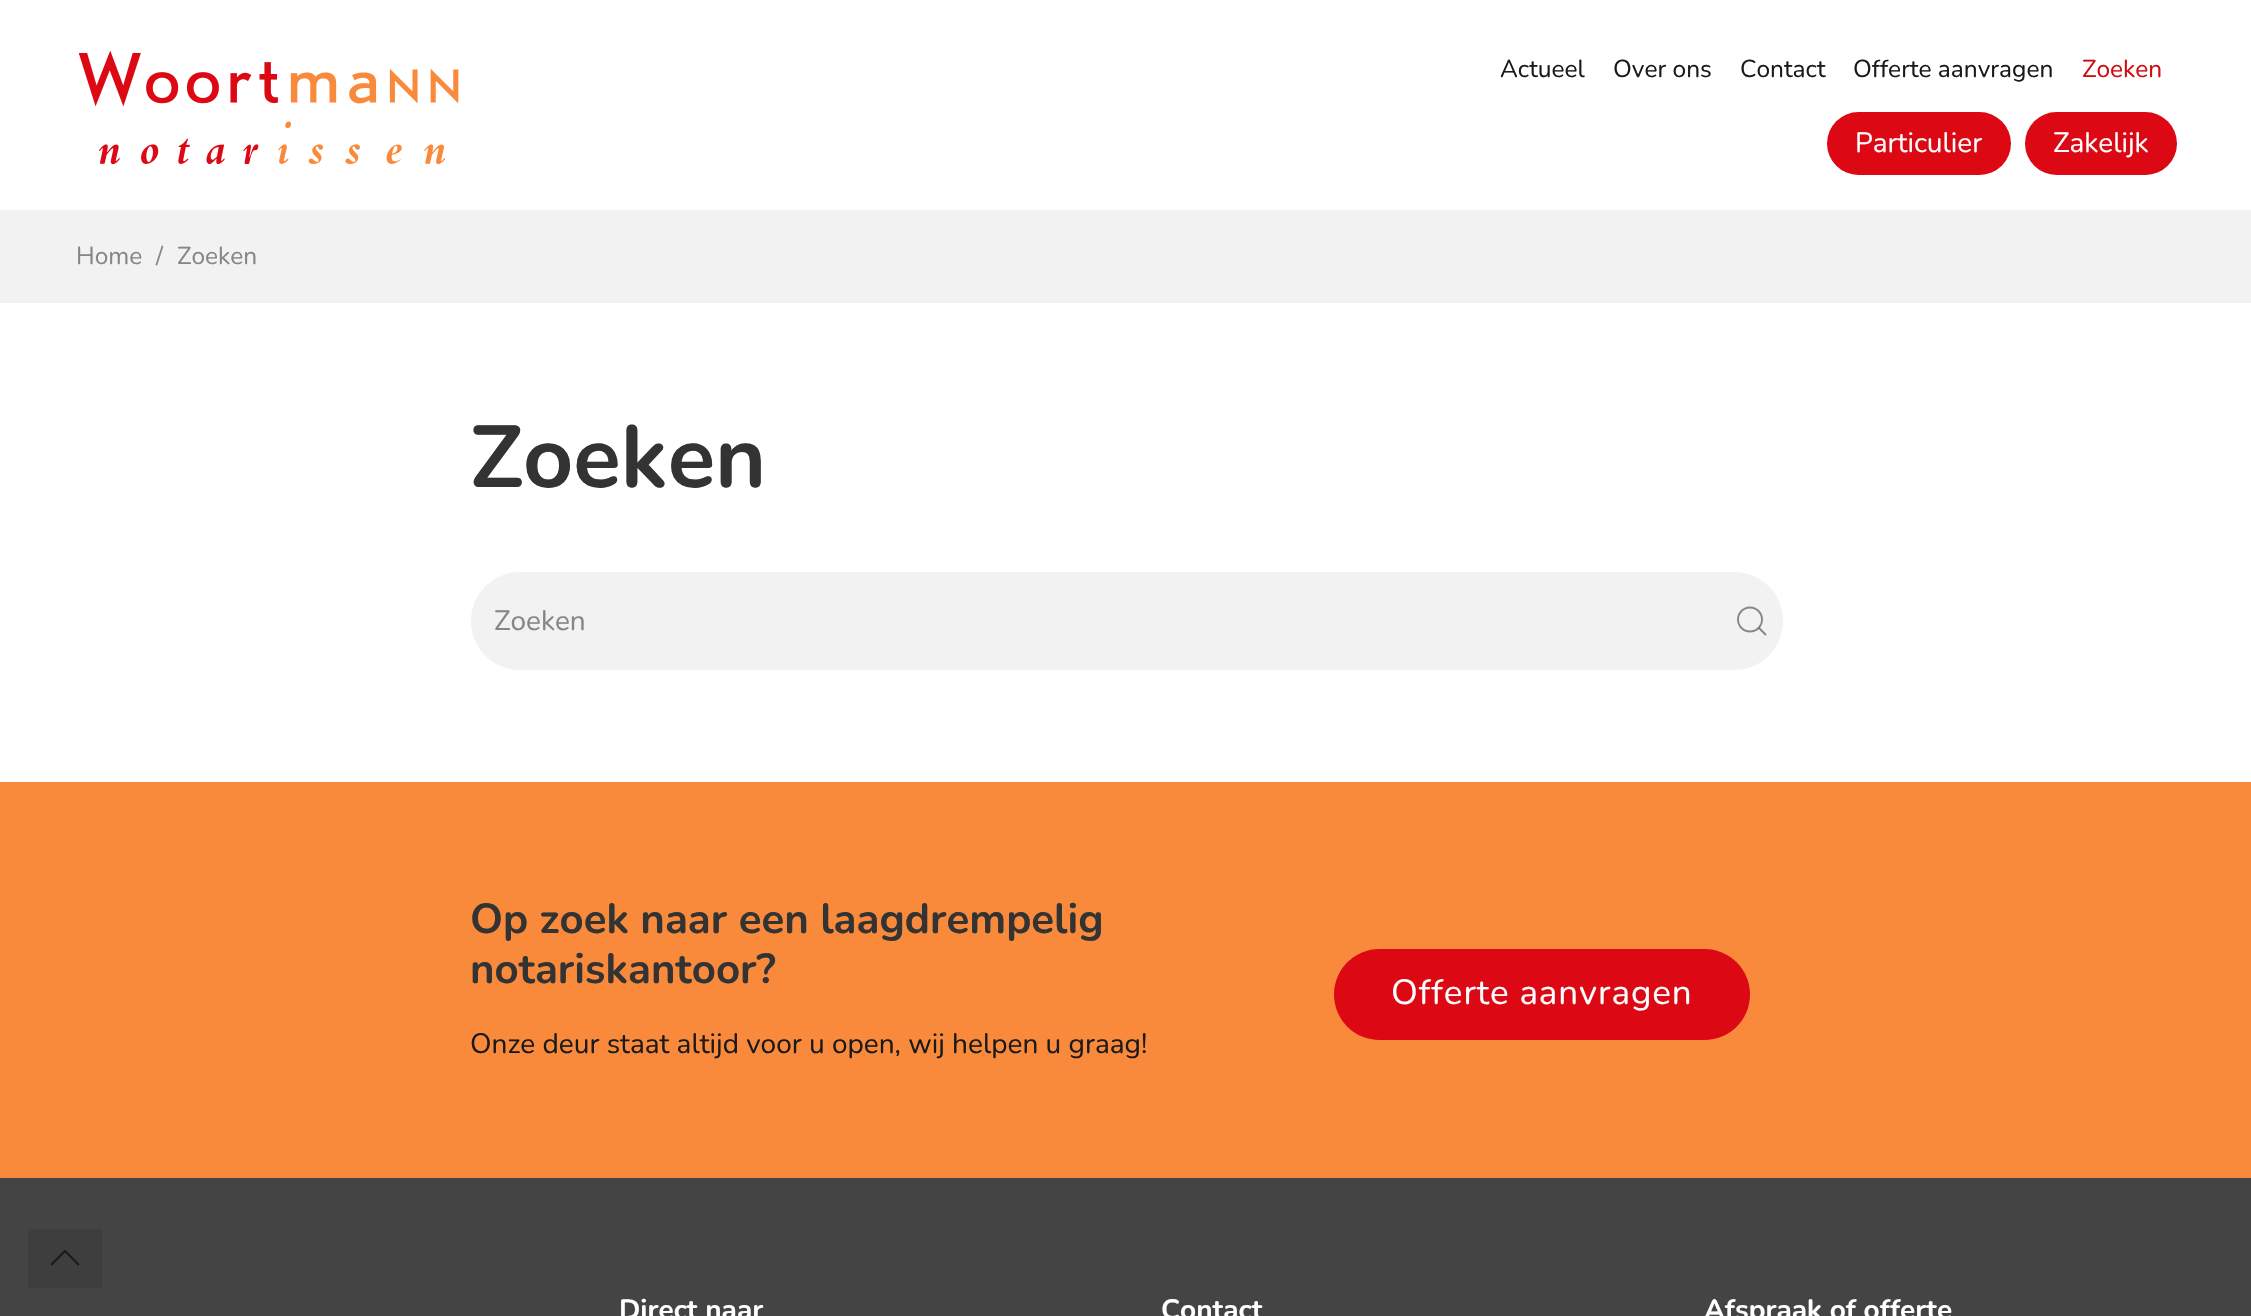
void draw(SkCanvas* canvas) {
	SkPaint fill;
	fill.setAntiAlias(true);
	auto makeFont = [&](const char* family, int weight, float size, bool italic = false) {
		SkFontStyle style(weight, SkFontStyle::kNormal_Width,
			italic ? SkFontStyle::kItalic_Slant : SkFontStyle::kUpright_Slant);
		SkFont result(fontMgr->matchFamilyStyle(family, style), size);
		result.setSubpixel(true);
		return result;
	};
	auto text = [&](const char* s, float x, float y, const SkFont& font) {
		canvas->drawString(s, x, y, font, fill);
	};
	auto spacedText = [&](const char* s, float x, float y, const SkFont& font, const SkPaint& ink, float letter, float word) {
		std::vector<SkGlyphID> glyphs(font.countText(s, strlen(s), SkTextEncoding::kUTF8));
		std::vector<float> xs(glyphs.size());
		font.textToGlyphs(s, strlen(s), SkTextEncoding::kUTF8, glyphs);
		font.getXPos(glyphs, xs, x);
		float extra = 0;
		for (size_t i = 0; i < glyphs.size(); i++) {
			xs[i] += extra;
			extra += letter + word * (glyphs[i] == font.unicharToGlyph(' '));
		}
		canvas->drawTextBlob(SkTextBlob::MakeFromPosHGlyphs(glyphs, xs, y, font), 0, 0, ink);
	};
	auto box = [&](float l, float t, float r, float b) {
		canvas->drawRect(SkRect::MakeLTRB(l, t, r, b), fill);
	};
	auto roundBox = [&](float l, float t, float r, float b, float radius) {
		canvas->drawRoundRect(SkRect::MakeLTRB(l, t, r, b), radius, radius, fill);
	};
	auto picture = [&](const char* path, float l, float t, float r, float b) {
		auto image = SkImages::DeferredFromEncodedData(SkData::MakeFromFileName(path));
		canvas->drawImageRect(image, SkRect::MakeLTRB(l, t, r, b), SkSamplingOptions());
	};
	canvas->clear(0xFFFFFFFF);
	picture("image0.png", 78, 50, 459, 165);
	fill.setColor(0xFFDC0814);
	roundBox(1827, 112, 2011, 175, 31.5f);
	roundBox(2025, 112, 2177, 175, 31.5f);
	fill.setColor(0xFFF2F2F2);
	box(0, 210, 2251, 303);
	roundBox(471, 572, 1783, 670, 49);
	fill.setStyle(SkPaint::kStroke_Style);
	fill.setStrokeWidth(1.9f);
	fill.setColor(0xFF868686);
	canvas->drawCircle(1750, 619.5f, 12, fill);
	fill.setColor(0x801A1A1A);
	canvas->drawPath(SkPathBuilder().moveTo(1759, 628).lineTo(1766, 635).close().detach(), fill);
	fill.setStyle(SkPaint::kFill_Style);
	fill.setColor(0xFFF98A3C);
	box(0, 782, 2251, 1178);
	fill.setColor(0xFFDC0814);
	roundBox(1334, 949, 1750, 1040, 45.5f);
	fill.setColor(0xFF444444);
	box(0, 1178, 2251, 1316);
	fill.setColor(0xFF3E3E3E);
	box(28, 1229, 102, 1288);
	fill.setStyle(SkPaint::kStroke_Style);
	fill.setStrokeWidth(2.1f);
	fill.setColor(0xFF1A1A1A);
	canvas->drawPath(SkPathBuilder().moveTo(51, 1265).lineTo(65, 1251).lineTo(79, 1265).detach(), fill);
	auto font1 = makeFont("Nunito", 200, 24.5f);
	fill.setStyle(SkPaint::kFill_Style);
	text("Actueel", 1500, 77, font1);
	text("Over ons", 1613, 77, font1);
	text("Contact", 1740, 77, font1);
	text("Offerte aanvragen", 1853, 77, font1);
	fill.setColor(0xFFD20A11);
	text("Zoeken", 2082, 77, font1);
	auto font2 = makeFont("Nunito", 200, 28);
	fill.setColor(0xFFFFFFFF);
	text("Particulier", 1855, 152, font2);
	text("Zakelijk", 2053, 152, font2);
	fill.setColor(0xFF868686);
	text("Home", 76, 264, font1);
	text("/", 156, 264, font1);
	text("Zoeken", 177, 264, font1);
	auto font3 = makeFont("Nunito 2", 200, 87.5f);
	fill.setColor(0xFF333333);
	text("Zoeken", 470, 487, font3);
	fill.setColor(0xFF868686);
	text("Zoeken", 494, 630, font2);
	auto font4 = makeFont("Nunito 2", 200, 42);
	fill.setColor(0xFF333333);
	text("Op zoek naar een laagdrempelig", 470, 933, font4);
	text("notariskantoor?", 470, 983, font4);
	fill.setColor(0xFF1A1A1A);
	text("Onze deur staat altijd voor u open, wij helpen u graag!", 470, 1053, font2);
	auto font5 = makeFont("Nunito", 200, 35);
	fill.setColor(0xFFFFFFFF);
	spacedText("Offerte aanvragen", 1391, 1004, font5, fill, 0.9f, 0);
	auto font6 = makeFont("Nunito 2", 200, 28);
	text("Direct naar", 619, 1319, font6);
	text("Contact", 1161, 1319, font6);
	text("Afspraak of offerte", 1704, 1319, font6);
}
